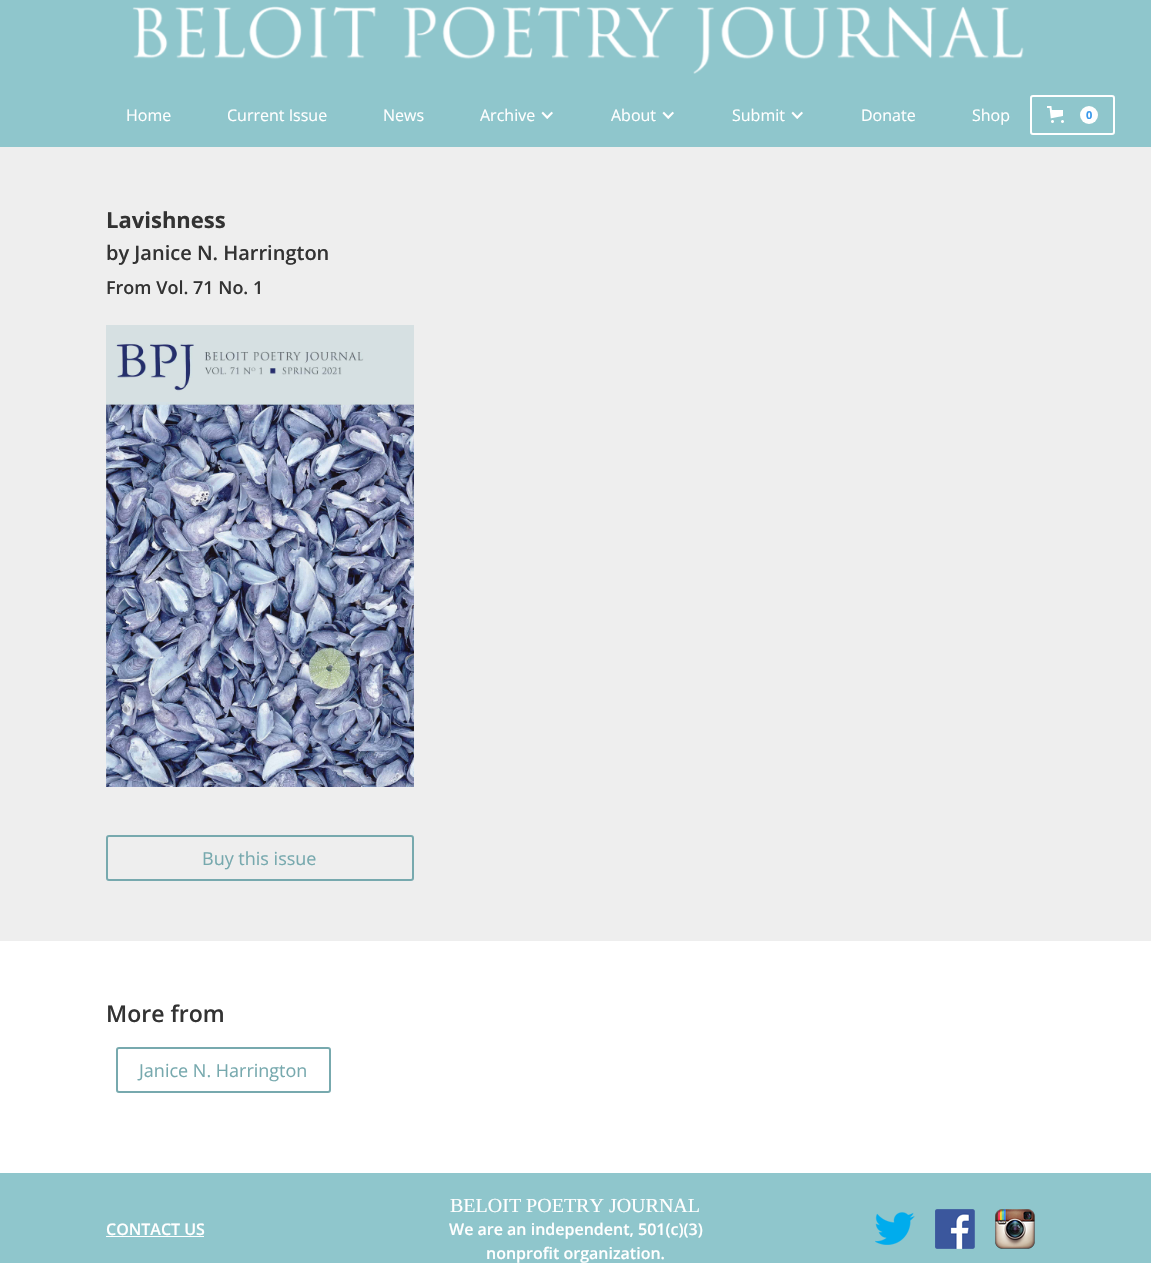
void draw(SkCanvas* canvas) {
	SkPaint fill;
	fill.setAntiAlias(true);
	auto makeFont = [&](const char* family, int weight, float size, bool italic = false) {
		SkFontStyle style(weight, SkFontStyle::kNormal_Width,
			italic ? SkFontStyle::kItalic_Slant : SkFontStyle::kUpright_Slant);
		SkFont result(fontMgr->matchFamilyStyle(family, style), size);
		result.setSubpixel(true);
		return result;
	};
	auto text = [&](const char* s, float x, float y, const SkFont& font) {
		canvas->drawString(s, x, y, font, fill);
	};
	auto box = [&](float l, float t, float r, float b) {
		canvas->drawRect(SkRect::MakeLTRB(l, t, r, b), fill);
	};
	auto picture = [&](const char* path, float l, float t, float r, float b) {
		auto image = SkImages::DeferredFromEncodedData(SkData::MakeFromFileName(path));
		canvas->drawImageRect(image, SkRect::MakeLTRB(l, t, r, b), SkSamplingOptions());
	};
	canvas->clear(0xFFEEEEEE);
	fill.setColor(0xFF8FC6CC);
	box(0, 0, 1151, 147);
	picture("image0.png", 132, 6, 1024, 74);
	picture("image1.png", 541, 111, 553, 119);
	picture("image1.png", 662, 111, 674, 119);
	picture("image1.png", 791, 111, 803, 119);
	fill.setStyle(SkPaint::kStroke_Style);
	fill.setStrokeWidth(2);
	fill.setColor(0xFFFFFFFF);
	canvas->drawRoundRect(SkRect::MakeLTRB(1031, 96, 1114, 134), 2, 2, fill);
	picture("image2.png", 1047, 106, 1064, 123);
	fill.setStyle(SkPaint::kFill_Style);
	canvas->drawCircle(1089, 115, 9, fill);
	picture("image3.png", 106, 325, 414, 787);
	fill.setStyle(SkPaint::kStroke_Style);
	fill.setColor(0xFF77A9AE);
	canvas->drawRoundRect(SkRect::MakeLTRB(107, 836, 413, 880), 2, 2, fill);
	fill.setStyle(SkPaint::kFill_Style);
	fill.setColor(0xFFFFFFFF);
	box(0, 941, 1151, 1173);
	fill.setStyle(SkPaint::kStroke_Style);
	fill.setColor(0xFF77A9AE);
	canvas->drawRoundRect(SkRect::MakeLTRB(117, 1048, 330, 1092), 2, 2, fill);
	fill.setStyle(SkPaint::kFill_Style);
	fill.setColor(0xFF8FC6CC);
	box(0, 1173, 1151, 1263);
	fill.setColor(0xFFFFFFFF);
	box(106, 1236, 204, 1237);
	picture("image4.png", 875, 1212, 915, 1245);
	picture("image5.png", 935, 1209, 975, 1249);
	picture("image6.png", 995, 1209, 1035, 1249);
	auto font1 = makeFont("Open Sans", 400, 16);
	text("Home", 126, 121, font1);
	text("Current Issue", 227, 121, font1);
	text("News", 383, 121, font1);
	text("Archive", 480, 121, font1);
	text("About", 611, 121, font1);
	text("Submit", 732, 121, font1);
	text("Donate", 861, 121, font1);
	text("Shop", 972, 121, font1);
	auto font2 = makeFont("Open Sans", 700, 11);
	fill.setColor(0xFF3898EC);
	text("0", 1086, 119, font2);
	auto font3 = makeFont("Open Sans", 700, 22);
	fill.setColor(0xFF333333);
	text("Lavishness", 106, 228, font3);
	auto font4 = makeFont("Open Sans", 600, 20);
	text("by Janice N. Harrington", 106, 260, font4);
	auto font5 = makeFont("Open Sans", 600, 18);
	text("From Vol. 71 No. 1", 106, 294, font5);
	auto font6 = makeFont("Open Sans", 400, 18);
	fill.setColor(0xFF77A9AE);
	text("Buy this issue", 202, 865, font6);
	auto font7 = makeFont("Open Sans", 600, 23);
	fill.setColor(0xFF333333);
	text("More from", 106, 1022, font7);
	fill.setColor(0xFF77A9AE);
	text("Janice N. Harrington", 139, 1077, font6);
	auto font8 = makeFont("Open Sans", 600, 16);
	fill.setColor(0xFFFFFFFF);
	text("CONTACT US", 106, 1235, font8);
	auto font9 = makeFont("Liberation Serif", 400, 20);
	text("BELOIT POETRY JOURNAL", 450, 1212, font9);
	text("We are an independent, 501(c)(3)", 449, 1235, font8);
	text("nonprofit organization.", 486, 1259, font8);
}
